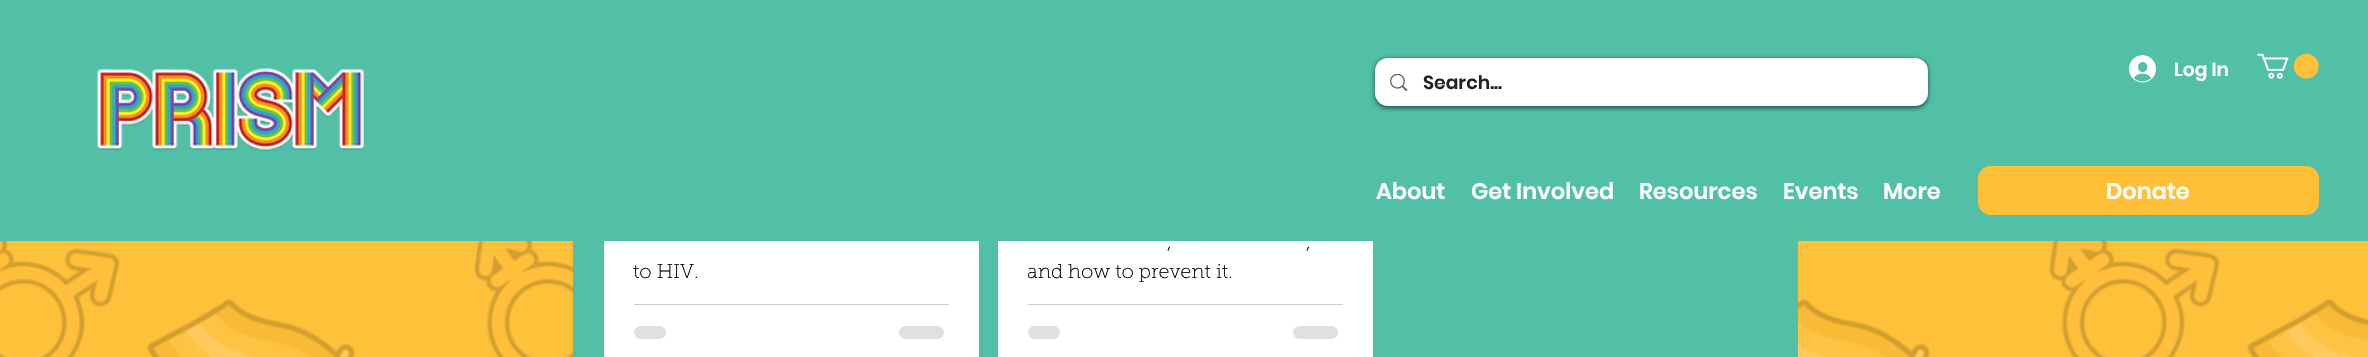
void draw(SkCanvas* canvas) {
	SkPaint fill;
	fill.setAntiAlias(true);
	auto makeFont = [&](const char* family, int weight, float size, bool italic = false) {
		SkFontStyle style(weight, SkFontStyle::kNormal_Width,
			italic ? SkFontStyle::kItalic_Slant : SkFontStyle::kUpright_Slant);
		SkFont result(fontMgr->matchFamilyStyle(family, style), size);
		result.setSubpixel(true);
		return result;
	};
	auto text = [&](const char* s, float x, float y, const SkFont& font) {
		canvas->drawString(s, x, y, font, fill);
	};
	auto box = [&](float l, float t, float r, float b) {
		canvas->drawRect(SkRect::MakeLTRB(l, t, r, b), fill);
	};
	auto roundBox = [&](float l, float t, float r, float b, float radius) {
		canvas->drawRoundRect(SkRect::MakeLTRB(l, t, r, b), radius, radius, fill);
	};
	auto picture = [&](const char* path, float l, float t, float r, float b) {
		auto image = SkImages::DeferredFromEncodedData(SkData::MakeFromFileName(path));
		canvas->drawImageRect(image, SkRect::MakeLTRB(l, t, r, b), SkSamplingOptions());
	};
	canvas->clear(0xFFFFC03A);
	fill.setColor(0xFF51C0A7);
	box(0, 0, 2368, 241);
	picture("image0.png", 97, 68, 365, 151);
	fill.setColor(0x99000000);
	fill.setMaskFilter(SkMaskFilter::MakeBlur(kNormal_SkBlurStyle, 2.5f));
	canvas->drawRoundRect(SkRect::MakeLTRB(1375, 59, 1928, 108), 13, 13, fill);
	fill.setMaskFilter(nullptr);
	fill.setColor(0xFFFFFFFF);
	roundBox(1375, 58, 1928, 106, 13);
	picture("image1.png", 1390, 74, 1408, 91);
	picture("image2.png", 2129, 55, 2156, 83);
	picture("image3.png", 2257, 53, 2319, 79);
	fill.setColor(0xFFFFC038);
	roundBox(1978, 166, 2319, 215, 13);
	picture("image4.png", 0, 241, 2368, 357);
	fill.setColor(0xFF51C0A7);
	box(573, 241, 1798, 357);
	fill.setColor(0xFFFFFFFF);
	box(604, 241, 979, 357);
	fill.setColor(0xFFCCCCCC);
	box(634, 304, 949, 305);
	fill.setColor(0xFFE0E0E0);
	roundBox(634, 326, 666, 339, 6.5f);
	roundBox(899, 326, 944, 339, 6.5f);
	fill.setColor(0xFFFFFFFF);
	box(998, 241, 1373, 357);
	fill.setColor(0xFFCCCCCC);
	box(1028, 304, 1343, 305);
	fill.setColor(0xFFE0E0E0);
	roundBox(1028, 326, 1060, 339, 6.5f);
	roundBox(1293, 326, 1338, 339, 6.5f);
	auto font1 = makeFont("Poppins", 600, 18.75f);
	fill.setColor(0xFF222222);
	text("Search...", 1423, 89, font1);
	fill.setColor(0xFFFFFFFF);
	text("Log In", 2174, 76, font1);
	auto font2 = makeFont("Poppins", 600, 22.5f);
	text("About", 1376, 199, font2);
	text("Get Involved", 1471, 199, font2);
	text("Resources", 1639, 199, font2);
	text("Events", 1783, 199, font2);
	text("More", 1883, 199, font2);
	text("Donate", 2106, 199, font2);
	auto font3 = makeFont("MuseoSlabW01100", 100, 20);
	fill.setColor(0xFF000000);
	text("to HIV.", 633, 278, font3);
	text(",", 1167, 248, font3);
	text(",", 1306, 248, font3);
	canvas->save();
	canvas->clipRect(SkRect::MakeLTRB(1028, 199, 1343, 289));
	text("and how to prevent it.", 1027, 278, font3);
	canvas->restore();
}
